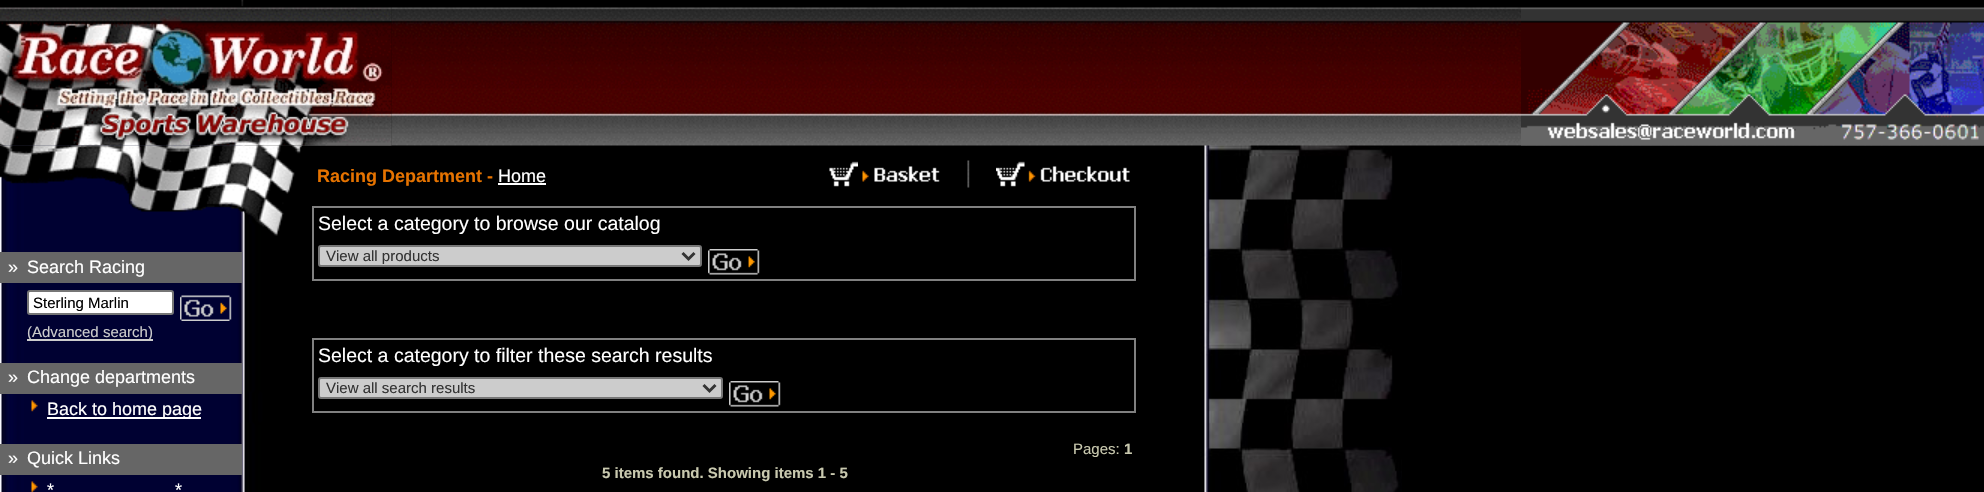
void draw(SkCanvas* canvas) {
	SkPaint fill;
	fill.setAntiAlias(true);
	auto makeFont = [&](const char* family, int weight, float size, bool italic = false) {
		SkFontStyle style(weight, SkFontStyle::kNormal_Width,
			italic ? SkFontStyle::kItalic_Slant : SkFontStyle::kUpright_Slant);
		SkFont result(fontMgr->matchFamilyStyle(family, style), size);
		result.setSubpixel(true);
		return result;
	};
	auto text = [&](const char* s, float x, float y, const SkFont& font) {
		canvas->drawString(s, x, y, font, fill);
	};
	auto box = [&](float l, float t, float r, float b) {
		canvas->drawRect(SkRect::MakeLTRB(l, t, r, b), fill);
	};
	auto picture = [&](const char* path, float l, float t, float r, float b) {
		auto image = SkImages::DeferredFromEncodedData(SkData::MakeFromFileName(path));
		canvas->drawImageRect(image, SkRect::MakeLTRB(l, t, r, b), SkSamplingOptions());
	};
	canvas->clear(0xFF000000);
	picture("image0.png", 0, 0, 1402, 492);
	picture("image1.png", 0, 0, 392, 146);
	picture("image3.png", 391, 0, 1521, 146);
	picture("image2.png", 0, 0, 392, 146);
	picture("image4.png", 1521, 145, 1984, 146);
	picture("image5.png", 1521, 7, 1984, 146);
	fill.setColor(0xFFFFFFFF);
	box(498, 183, 546, 185);
	picture("image6.png", 829, 161, 858, 187);
	picture("image7.png", 862, 170, 869, 182);
	picture("image8.png", 874, 166, 940, 182);
	picture("image9.png", 967, 160, 970, 188);
	picture("image10.png", 996, 161, 1025, 187);
	picture("image11.png", 1028, 170, 1036, 182);
	picture("image12.png", 1040, 166, 1130, 182);
	fill.setStyle(SkPaint::kStroke_Style);
	fill.setStrokeWidth(2);
	fill.setColor(0xFF808080);
	canvas->drawRect(SkRect::MakeLTRB(313, 207, 1135, 280), fill);
	fill.setStyle(SkPaint::kFill_Style);
	fill.setColor(0xFFCCCCCC);
	canvas->drawRoundRect(SkRect::MakeLTRB(319, 246, 701, 266), 2, 2, fill);
	fill.setStyle(SkPaint::kStroke_Style);
	fill.setColor(0xFF767676);
	canvas->drawRoundRect(SkRect::MakeLTRB(319, 246, 701, 266), 2, 2, fill);
	fill.setStrokeWidth(3);
	fill.setColor(0xFF333333);
	canvas->drawPath(SkPathBuilder().moveTo(682.5f, 253).lineTo(688.5f, 259).lineTo(694.5f, 253).detach(), fill);
	picture("image13.png", 708, 249, 760, 275);
	picture("image14.png", 0, 145, 249, 215);
	picture("image15.png", 249, 145, 302, 236);
	fill.setStyle(SkPaint::kFill_Style);
	fill.setColor(0xFF666666);
	box(0, 252, 242, 257);
	box(0, 257, 242, 283);
	fill.setColor(0xFFFFFFFF);
	canvas->drawRoundRect(SkRect::MakeLTRB(28, 291, 173, 314), 2, 2, fill);
	fill.setStyle(SkPaint::kStroke_Style);
	fill.setStrokeWidth(2);
	fill.setColor(0xFF767676);
	canvas->drawRoundRect(SkRect::MakeLTRB(28, 291, 173, 314), 2, 2, fill);
	picture("image16.png", 180, 295, 232, 321);
	fill.setStyle(SkPaint::kFill_Style);
	fill.setColor(0xFFCCCCCC);
	box(27, 339, 153, 341);
	fill.setColor(0xFF666666);
	box(0, 363, 242, 368);
	box(0, 368, 242, 394);
	picture("image17.png", 31, 400, 38, 412);
	fill.setColor(0xFFFFFFFF);
	box(47, 417, 201, 419);
	fill.setColor(0xFF666666);
	box(0, 444, 242, 449);
	box(0, 449, 242, 475);
	picture("image18.png", 31, 481, 38, 492);
	fill.setStyle(SkPaint::kStroke_Style);
	fill.setColor(0xFF808080);
	canvas->drawRect(SkRect::MakeLTRB(313, 339, 1135, 412), fill);
	fill.setStyle(SkPaint::kFill_Style);
	fill.setColor(0xFFCCCCCC);
	canvas->drawRoundRect(SkRect::MakeLTRB(319, 378, 722, 398), 2, 2, fill);
	fill.setStyle(SkPaint::kStroke_Style);
	fill.setColor(0xFF767676);
	canvas->drawRoundRect(SkRect::MakeLTRB(319, 378, 722, 398), 2, 2, fill);
	fill.setStrokeWidth(3);
	fill.setColor(0xFF333333);
	canvas->drawPath(SkPathBuilder().moveTo(703.5f, 385).lineTo(709.5f, 391).lineTo(715.5f, 385).detach(), fill);
	picture("image19.png", 729, 381, 781, 407);
	auto font1 = makeFont("Liberation Sans", 700, 18);
	fill.setStyle(SkPaint::kFill_Style);
	fill.setColor(0xFFE67300);
	text("Racing Department -", 317, 182, font1);
	auto font2 = makeFont("Liberation Sans", 400, 18);
	fill.setColor(0xFFFFFFFF);
	text("Home", 498, 182, font2);
	auto font3 = makeFont("Liberation Sans", 400, 19.5f);
	text("Select a category to browse our catalog", 318, 230, font3);
	auto font4 = makeFont("Liberation Sans", 400, 15);
	fill.setColor(0xFF333333);
	text("View all products", 326, 261, font4);
	fill.setColor(0xFFFFFFFF);
	text("»", 8, 273, font2);
	text("Search Racing", 27, 273, font2);
	fill.setColor(0xFF000000);
	text("Sterling Marlin", 33, 308, font4);
	fill.setColor(0xFFCCCCCC);
	text("(Advanced search)", 27, 337, font4);
	fill.setColor(0xFFFFFFFF);
	text("»", 8, 383, font2);
	text("Change departments", 27, 383, font2);
	text("Back to home page", 47, 415, font2);
	text("»", 8, 464, font2);
	text("Quick Links", 27, 464, font2);
	text("*", 47, 496, font2);
	text("*", 175, 496, font2);
	text("Select a category to filter these search results", 318, 362, font3);
	fill.setColor(0xFF333333);
	text("View all search results", 326, 393, font4);
	fill.setColor(0xFFC9C9AF);
	text("Pages:", 1073, 454, font4);
	auto font5 = makeFont("Liberation Sans", 700, 15);
	text("1", 1124, 454, font5);
	text("5 items found. Showing items 1 - 5", 602, 478, font5);
}
